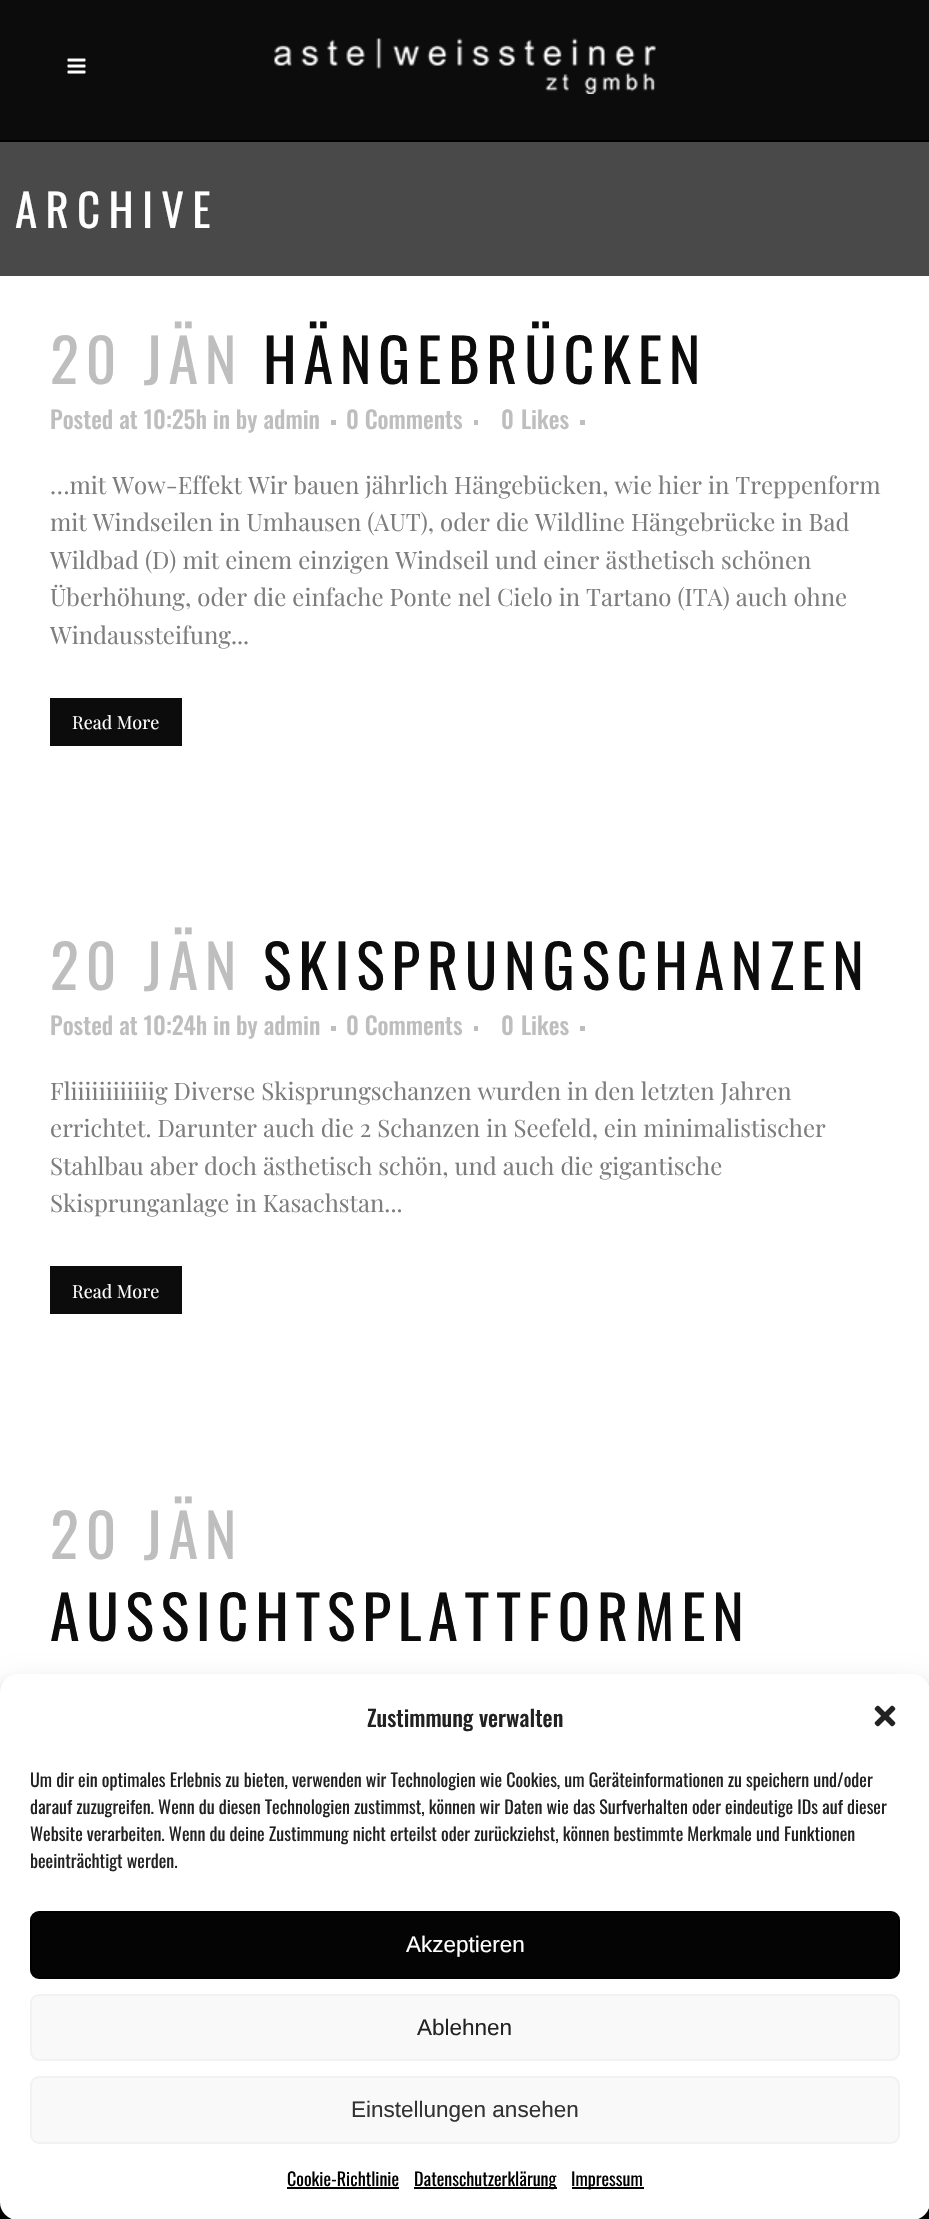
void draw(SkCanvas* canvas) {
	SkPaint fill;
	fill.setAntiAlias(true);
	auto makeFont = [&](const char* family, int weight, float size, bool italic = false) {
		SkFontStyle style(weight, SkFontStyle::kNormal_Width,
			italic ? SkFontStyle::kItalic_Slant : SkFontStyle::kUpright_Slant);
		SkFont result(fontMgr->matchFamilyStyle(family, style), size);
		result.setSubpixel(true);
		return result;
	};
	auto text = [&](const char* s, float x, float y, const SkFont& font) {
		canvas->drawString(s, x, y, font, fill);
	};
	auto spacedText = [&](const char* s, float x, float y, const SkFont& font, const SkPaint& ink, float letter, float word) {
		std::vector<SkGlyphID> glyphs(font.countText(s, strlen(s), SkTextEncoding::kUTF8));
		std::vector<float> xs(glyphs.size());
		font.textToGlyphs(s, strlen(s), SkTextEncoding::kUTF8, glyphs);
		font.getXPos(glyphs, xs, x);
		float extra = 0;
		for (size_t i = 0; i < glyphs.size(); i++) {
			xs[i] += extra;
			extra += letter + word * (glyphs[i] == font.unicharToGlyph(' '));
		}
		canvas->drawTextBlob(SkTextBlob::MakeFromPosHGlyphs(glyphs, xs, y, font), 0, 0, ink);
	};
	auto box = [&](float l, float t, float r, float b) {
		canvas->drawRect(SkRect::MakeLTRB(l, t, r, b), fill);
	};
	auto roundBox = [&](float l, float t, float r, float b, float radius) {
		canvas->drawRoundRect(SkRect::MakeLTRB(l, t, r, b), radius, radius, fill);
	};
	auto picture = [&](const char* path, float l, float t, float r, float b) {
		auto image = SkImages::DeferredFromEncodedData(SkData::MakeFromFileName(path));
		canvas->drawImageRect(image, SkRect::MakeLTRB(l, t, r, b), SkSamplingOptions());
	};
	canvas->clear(0xFFFFFFFF);
	fill.setColor(0xFF0C0C0C);
	box(0, 0, 929, 140);
	fill.setColor(0xFF000000);
	box(0, 140, 929, 142);
	picture("image0.png", 67, 58, 86, 74);
	picture("image1.png", 274, 38, 656, 94);
	fill.setColor(0xFF4A4949);
	box(0, 142, 929, 276);
	fill.setColor(0xFFBEBEBE);
	box(331, 420, 336, 425);
	box(474, 420, 478, 425);
	box(580, 420, 585, 425);
	fill.setColor(0xFF0C0C0C);
	box(50, 698, 182, 746);
	fill.setColor(0xFFBEBEBE);
	box(331, 1026, 336, 1031);
	box(474, 1026, 478, 1031);
	box(580, 1026, 585, 1031);
	fill.setColor(0xFF0C0C0C);
	box(50, 1266, 182, 1314);
	fill.setColor(0xFF000000);
	box(0, 2202, 929, 2219);
	fill.setColor(0x3B000000);
	fill.setMaskFilter(SkMaskFilter::MakeBlur(kNormal_SkBlurStyle, 4.5f));
	canvas->drawRoundRect(SkRect::MakeLTRB(0, 1683, 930, 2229), 18, 18, fill);
	fill.setMaskFilter(nullptr);
	fill.setColor(0x30000000);
	fill.setMaskFilter(SkMaskFilter::MakeBlur(kNormal_SkBlurStyle, 15));
	canvas->drawRoundRect(SkRect::MakeLTRB(0, 1689, 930, 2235), 18, 18, fill);
	fill.setMaskFilter(nullptr);
	fill.setColor(0xFFFFFFFF);
	roundBox(0, 1674, 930, 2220, 18);
	picture("image2.png", 874, 1705, 896, 1727);
	fill.setColor(0xFF040404);
	canvas->drawRoundRect(SkRect::MakeLTRB(31, 1912, 899, 1978), 8, 8, fill);
	fill.setStyle(SkPaint::kStroke_Style);
	fill.setStrokeWidth(2);
	fill.setColor(0xFF000000);
	canvas->drawRoundRect(SkRect::MakeLTRB(31, 1912, 899, 1978), 8, 8, fill);
	fill.setStyle(SkPaint::kFill_Style);
	fill.setColor(0xFFF9F9F9);
	canvas->drawRoundRect(SkRect::MakeLTRB(31, 1995, 899, 2060), 8, 8, fill);
	fill.setStyle(SkPaint::kStroke_Style);
	fill.setColor(0xFFF2F2F2);
	canvas->drawRoundRect(SkRect::MakeLTRB(31, 1995, 899, 2060), 8, 8, fill);
	fill.setStyle(SkPaint::kFill_Style);
	fill.setColor(0xFFF9F9F9);
	canvas->drawRoundRect(SkRect::MakeLTRB(31, 2077, 899, 2143), 8, 8, fill);
	fill.setStyle(SkPaint::kStroke_Style);
	fill.setColor(0xFFF2F2F2);
	canvas->drawRoundRect(SkRect::MakeLTRB(31, 2077, 899, 2143), 8, 8, fill);
	fill.setStyle(SkPaint::kFill_Style);
	fill.setColor(0xFF000000);
	box(287, 2187, 399, 2189);
	box(414, 2187, 557, 2189);
	box(572, 2187, 644, 2189);
	auto font1 = makeFont("Oswald", 400, 45);
	fill.setColor(0xFFFFFFFF);
	spacedText("ARCHIVE", 15, 228, font1, fill, 8.25f, 0);
	auto font2 = makeFont("Oswald", 400, 60);
	fill.setColor(0xFFBEBEBE);
	spacedText("20 JÄN", 50, 384, font2, fill, 6.75f, 0);
	fill.setColor(0xFF0C0C0C);
	spacedText("HÄNGEBRÜCKEN", 263, 384, font2, fill, 6.75f, 0);
	auto font3 = makeFont("Oswald", 500, 24);
	fill.setColor(0xFFBEBEBE);
	text("Posted at 10:25h in by admin", 50, 429, font3);
	text("0 Comments", 346, 429, font3);
	text("0", 501, 429, font3);
	text("Likes", 521, 429, font3);
	auto font4 = makeFont("Playfair Display", 400, 24);
	fill.setColor(0xFF7D7D7D);
	text("…mit Wow-Effekt Wir bauen jährlich Hängebücken, wie hier in Treppenform", 50, 494, font4);
	text("mit Windseilen in Umhausen (AUT), oder die Wildline Hängebrücke in Bad", 50, 531, font4);
	text("Wildbad (D) mit einem einzigen Windseil und einer ästhetisch schönen", 50, 569, font4);
	text("Überhöhung, oder die einfache Ponte nel Cielo in Tartano (ITA) auch ohne", 50, 606, font4);
	text("Windaussteifung...", 50, 644, font4);
	auto font5 = makeFont("Playfair Display", 400, 18);
	fill.setColor(0xFFFFFFFF);
	text("Read More", 72, 729, font5);
	fill.setColor(0xFFBEBEBE);
	spacedText("20 JÄN", 50, 990, font2, fill, 6.75f, 0);
	fill.setColor(0xFF0C0C0C);
	spacedText("SKISPRUNGSCHANZEN", 263, 990, font2, fill, 6.75f, 0);
	fill.setColor(0xFFBEBEBE);
	text("Posted at 10:24h in by admin", 50, 1035, font3);
	text("0 Comments", 346, 1035, font3);
	text("0", 501, 1035, font3);
	text("Likes", 521, 1035, font3);
	fill.setColor(0xFF7D7D7D);
	text("Fliiiiiiiiiiiig Diverse Skisprungschanzen wurden in den letzten Jahren", 50, 1100, font4);
	text("errichtet. Darunter auch die 2 Schanzen in Seefeld, ein minimalistischer", 50, 1137, font4);
	text("Stahlbau aber doch ästhetisch schön, und auch die gigantische", 50, 1175, font4);
	text("Skisprunganlage in Kasachstan...", 50, 1212, font4);
	fill.setColor(0xFFFFFFFF);
	text("Read More", 72, 1298, font5);
	fill.setColor(0xFFBEBEBE);
	spacedText("20 JÄN", 50, 1559, font2, fill, 6.75f, 0);
	fill.setColor(0xFF0C0C0C);
	spacedText("AUSSICHTSPLATTFORMEN", 50, 1641, font2, fill, 6.75f, 0);
	auto font6 = makeFont("Oswald", 500, 22.5f);
	fill.setColor(0xFF222222);
	text("Zustimmung verwalten", 367, 1727, font6);
	auto font7 = makeFont("Oswald", 400, 18);
	text("Um dir ein optimales Erlebnis zu bieten, verwenden wir Technologien wie Cookies, um Geräteinformationen zu speichern und/oder", 30, 1787, font7);
	text("darauf zuzugreifen. Wenn du diesen Technologien zustimmst, können wir Daten wie das Surfverhalten oder eindeutige IDs auf dieser", 30, 1814, font7);
	text("Website verarbeiten. Wenn du deine Zustimmung nicht erteilst oder zurückziehst, können bestimmte Merkmale und Funktionen", 30, 1841, font7);
	text("beeinträchtigt werden.", 30, 1868, font7);
	auto font8 = makeFont("Liberation Sans", 400, 22.5f);
	fill.setColor(0xFFFFFFFF);
	text("Akzeptieren", 406, 1952, font8);
	fill.setColor(0xFF222222);
	text("Ablehnen", 417, 2035, font8);
	fill.setColor(0xFF333333);
	text("Einstellungen ansehen", 351, 2117, font8);
	fill.setColor(0xFF000000);
	text("Cookie-Richtlinie", 287, 2186, font7);
	text("Datenschutzerklärung", 414, 2186, font7);
	text("Impressum", 571, 2186, font7);
}
